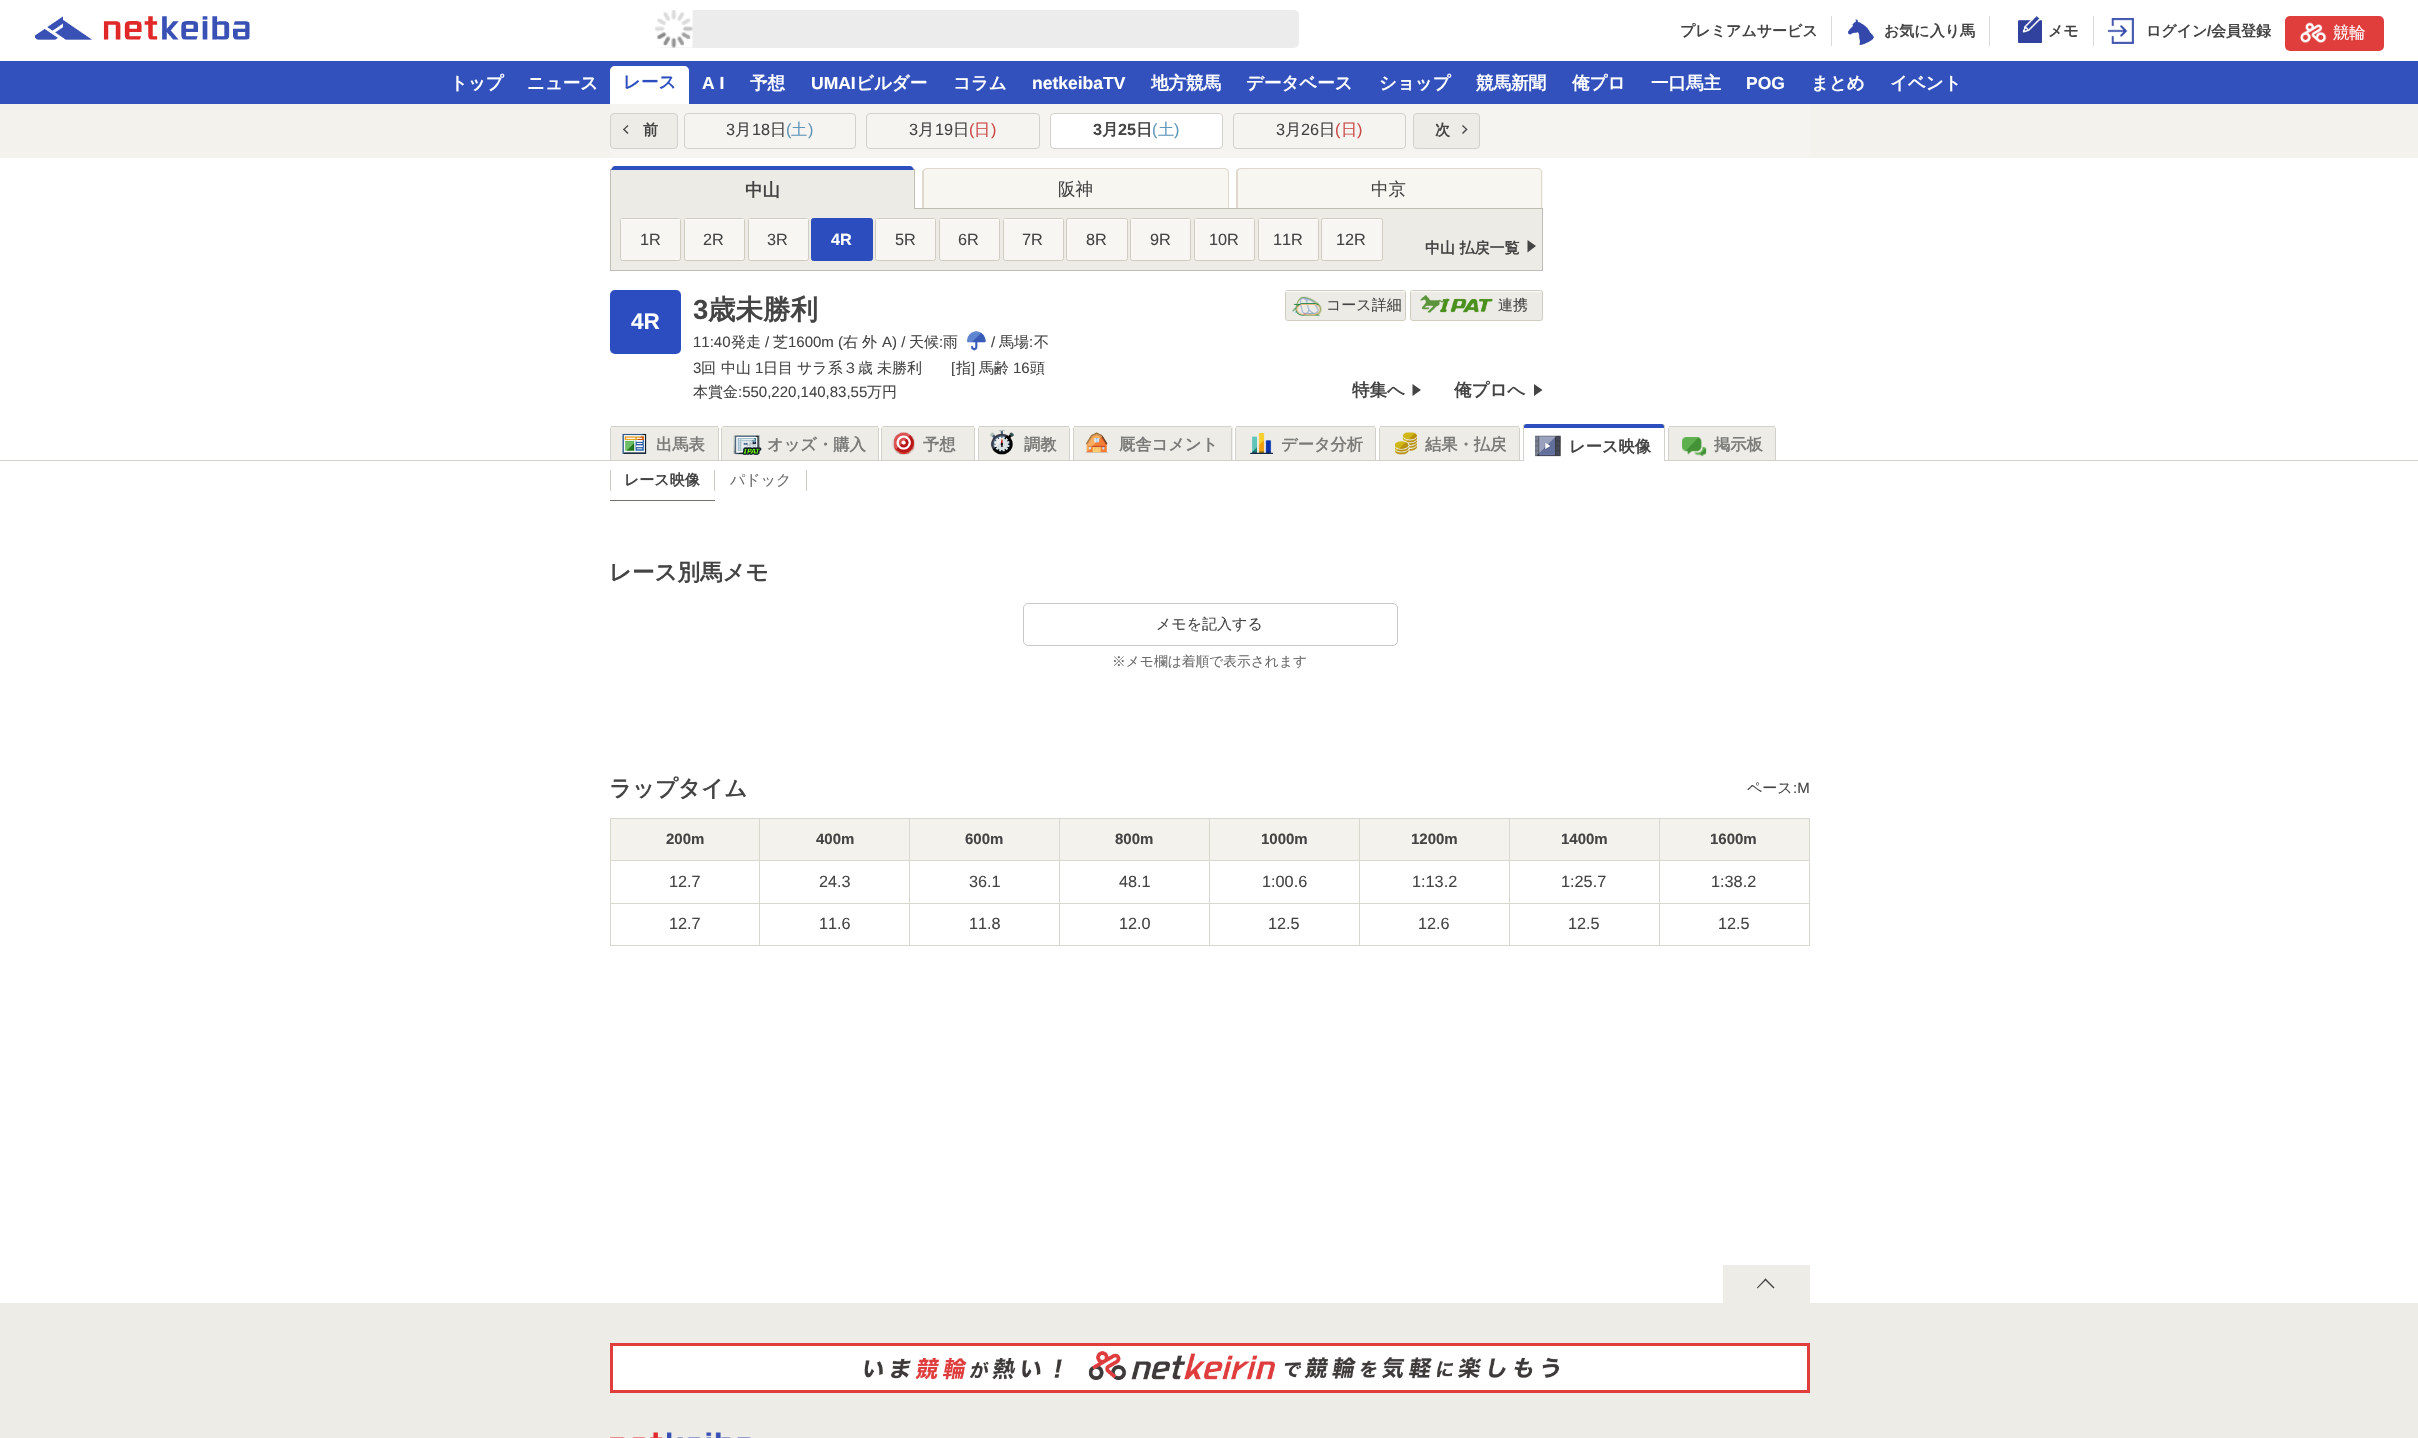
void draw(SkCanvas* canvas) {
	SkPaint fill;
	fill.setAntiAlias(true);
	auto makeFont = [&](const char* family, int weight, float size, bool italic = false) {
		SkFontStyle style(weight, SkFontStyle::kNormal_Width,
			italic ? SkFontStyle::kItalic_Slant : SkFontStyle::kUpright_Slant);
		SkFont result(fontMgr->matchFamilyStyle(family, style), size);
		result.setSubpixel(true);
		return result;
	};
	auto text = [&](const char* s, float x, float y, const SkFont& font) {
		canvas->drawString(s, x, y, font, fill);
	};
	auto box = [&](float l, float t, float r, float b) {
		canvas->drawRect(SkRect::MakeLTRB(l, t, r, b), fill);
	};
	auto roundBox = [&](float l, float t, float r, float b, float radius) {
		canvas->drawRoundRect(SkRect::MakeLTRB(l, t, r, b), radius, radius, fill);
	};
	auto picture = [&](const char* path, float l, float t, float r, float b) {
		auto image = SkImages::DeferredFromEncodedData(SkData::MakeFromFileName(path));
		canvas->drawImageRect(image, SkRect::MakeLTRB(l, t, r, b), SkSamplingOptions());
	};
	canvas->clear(0xFFFFFFFF);
	picture("image0.png", 35, 16, 250, 40);
	fill.setColor(0xFFECECEC);
	roundBox(655, 10, 1299, 48, 5);
	picture("image1.png", 655, 10, 693, 48);
	fill.setColor(0xFFD9D9D9);
	box(1831, 16, 1832, 46);
	picture("image2.png", 1848, 19, 1874, 45);
	box(1989, 16, 1990, 46);
	picture("image3.png", 2018, 16, 2042, 43);
	box(2093, 16, 2094, 46);
	picture("image4.png", 2108, 18, 2134, 44);
	fill.setColor(0xFFE03D3D);
	roundBox(2285, 16, 2384, 51, 5);
	picture("image5.png", 2300, 22, 2327, 43);
	fill.setColor(0xFF3251BC);
	box(0, 61, 2418, 104);
	fill.setColor(0xFFFFFFFF);
	canvas->drawPath(SkPathBuilder().moveTo(615, 66).lineTo(684, 66).cubicTo(687, 66, 689, 68, 689, 71).lineTo(689, 104).lineTo(610, 104).lineTo(610, 71).cubicTo(610, 68, 612, 66, 615, 66).close().detach(), fill);
	fill.setColor(0xFFF4F2EC);
	box(0, 104, 2418, 158);
	fill.setColor(0xFFF5F4F1);
	box(610, 104, 1810, 158);
	fill.setColor(0xFFEDECE6);
	canvas->drawRoundRect(SkRect::MakeLTRB(610.5f, 113.5f, 677.5f, 148.5f), 3.5f, 3.5f, fill);
	fill.setStyle(SkPaint::kStroke_Style);
	fill.setStrokeWidth(1);
	fill.setColor(0xFFD2D1CB);
	canvas->drawRoundRect(SkRect::MakeLTRB(610.5f, 113.5f, 677.5f, 148.5f), 3.5f, 3.5f, fill);
	fill.setStyle(SkPaint::kFill_Style);
	fill.setColor(0xFF444444);
	canvas->drawPath(SkPathBuilder().moveTo(627.5f, 134).lineTo(623, 129.5f).lineTo(624, 128.5f).lineTo(628.5f, 133).close().detach(), fill);
	canvas->drawPath(SkPathBuilder().moveTo(624, 130).lineTo(623, 129.5f).lineTo(627.5f, 125).lineTo(628.5f, 126).close().detach(), fill);
	fill.setStyle(SkPaint::kStroke_Style);
	fill.setColor(0xFFD2D1CB);
	canvas->drawRoundRect(SkRect::MakeLTRB(684.5f, 113.5f, 855.5f, 148.5f), 3.5f, 3.5f, fill);
	canvas->drawRoundRect(SkRect::MakeLTRB(866.5f, 113.5f, 1039.5f, 148.5f), 3.5f, 3.5f, fill);
	fill.setStyle(SkPaint::kFill_Style);
	fill.setColor(0xFFFFFFFF);
	canvas->drawRoundRect(SkRect::MakeLTRB(1050.5f, 113.5f, 1222.5f, 148.5f), 3.5f, 3.5f, fill);
	fill.setStyle(SkPaint::kStroke_Style);
	fill.setColor(0xFFD2D1CB);
	canvas->drawRoundRect(SkRect::MakeLTRB(1050.5f, 113.5f, 1222.5f, 148.5f), 3.5f, 3.5f, fill);
	canvas->drawRoundRect(SkRect::MakeLTRB(1233.5f, 113.5f, 1405.5f, 148.5f), 3.5f, 3.5f, fill);
	fill.setStyle(SkPaint::kFill_Style);
	fill.setColor(0xFFEDECE6);
	canvas->drawRoundRect(SkRect::MakeLTRB(1413.5f, 113.5f, 1479.5f, 148.5f), 3.5f, 3.5f, fill);
	fill.setStyle(SkPaint::kStroke_Style);
	fill.setColor(0xFFD2D1CB);
	canvas->drawRoundRect(SkRect::MakeLTRB(1413.5f, 113.5f, 1479.5f, 148.5f), 3.5f, 3.5f, fill);
	fill.setStyle(SkPaint::kFill_Style);
	fill.setColor(0xFF444444);
	canvas->drawPath(SkPathBuilder().moveTo(1463, 125).lineTo(1467.5f, 129.5f).lineTo(1466.5f, 130).lineTo(1462, 126).close().detach(), fill);
	canvas->drawPath(SkPathBuilder().moveTo(1466.5f, 128.5f).lineTo(1467.5f, 129.5f).lineTo(1463, 134).lineTo(1462, 133).close().detach(), fill);
	fill.setColor(0xFFD2D1CB);
	box(0, 460, 2418, 461);
	fill.setColor(0xFFEDEBE5);
	canvas->drawRect(SkRect::MakeLTRB(610.5f, 208.5f, 1542.5f, 270.5f), fill);
	fill.setStyle(SkPaint::kStroke_Style);
	fill.setColor(0xFFC0BDB4);
	canvas->drawRect(SkRect::MakeLTRB(610.5f, 208.5f, 1542.5f, 270.5f), fill);
	fill.setStyle(SkPaint::kFill_Style);
	fill.setColor(0xFFEDEBE5);
	canvas->drawPath(SkPathBuilder().moveTo(615, 166).lineTo(910, 166).cubicTo(913, 166, 915, 168, 915, 171).lineTo(915, 209).lineTo(610, 209).lineTo(610, 171).cubicTo(610, 168, 612, 166, 615, 166).close().detach(), fill);
	fill.setColor(0xFFC0BDB4);
	box(914, 169, 915, 209);
	box(610, 169, 611, 209);
	fill.setColor(0xFF2D4EBF);
	canvas->drawPath(SkPathBuilder().moveTo(615, 166).lineTo(910, 166).cubicTo(912, 166, 913, 168, 914, 170).lineTo(611, 170).cubicTo(612, 168, 613, 166, 615, 166).close().detach(), fill);
	fill.setColor(0xFFF7F6F1);
	canvas->drawPath(SkPathBuilder().moveTo(928, 168).lineTo(1224, 168).cubicTo(1227, 168, 1229, 170, 1229, 173).lineTo(1229, 208).lineTo(923, 208).lineTo(923, 173).cubicTo(923, 170, 925, 168, 928, 168).close().detach(), fill);
	fill.setColor(0xFFDED9CC);
	canvas->drawPath(SkPathBuilder(SkPathFillType::kEvenOdd).moveTo(928, 168).lineTo(1224, 168).cubicTo(1227, 168, 1229, 170, 1229, 172).lineTo(1229, 208).lineTo(922, 208).lineTo(922, 172).cubicTo(922, 170, 925, 168, 928, 168).close().moveTo(928, 169).lineTo(1224, 169).cubicTo(1226, 169, 1228, 170, 1228, 172).lineTo(1228, 208).lineTo(924, 208).lineTo(924, 172).cubicTo(924, 170, 925, 169, 928, 169).close().detach(), fill);
	fill.setColor(0xFFF7F6F1);
	canvas->drawPath(SkPathBuilder().moveTo(1241, 168).lineTo(1538, 168).cubicTo(1541, 168, 1543, 170, 1543, 173).lineTo(1543, 208).lineTo(1236, 208).lineTo(1236, 173).cubicTo(1236, 170, 1238, 168, 1241, 168).close().detach(), fill);
	fill.setColor(0xFFDED9CC);
	canvas->drawPath(SkPathBuilder(SkPathFillType::kEvenOdd).moveTo(1241, 168).lineTo(1538, 168).cubicTo(1540, 168, 1542, 170, 1542, 172).lineTo(1542, 208).lineTo(1236, 208).lineTo(1236, 172).cubicTo(1236, 170, 1238, 168, 1241, 168).close().moveTo(1241, 169).lineTo(1538, 169).cubicTo(1540, 169, 1541, 170, 1541, 172).lineTo(1541, 208).lineTo(1238, 208).lineTo(1238, 172).cubicTo(1238, 170, 1239, 169, 1241, 169).close().detach(), fill);
	fill.setColor(0xFFF7F6F2);
	canvas->drawRoundRect(SkRect::MakeLTRB(620.5f, 218.5f, 680.5f, 260.5f), 2, 2, fill);
	fill.setStyle(SkPaint::kStroke_Style);
	fill.setColor(0xFFD0CCC1);
	canvas->drawRoundRect(SkRect::MakeLTRB(620.5f, 218.5f, 680.5f, 260.5f), 2, 2, fill);
	fill.setStyle(SkPaint::kFill_Style);
	fill.setColor(0xFFFDFCFB);
	box(621, 219, 680, 220);
	fill.setColor(0xFFF7F6F2);
	canvas->drawRoundRect(SkRect::MakeLTRB(684.5f, 218.5f, 744.5f, 260.5f), 2, 2, fill);
	fill.setStyle(SkPaint::kStroke_Style);
	fill.setColor(0xFFD0CCC1);
	canvas->drawRoundRect(SkRect::MakeLTRB(684.5f, 218.5f, 744.5f, 260.5f), 2, 2, fill);
	fill.setStyle(SkPaint::kFill_Style);
	fill.setColor(0xFFFDFCFB);
	box(685, 219, 744, 220);
	fill.setColor(0xFFF7F6F2);
	canvas->drawRoundRect(SkRect::MakeLTRB(748.5f, 218.5f, 808.5f, 260.5f), 2, 2, fill);
	fill.setStyle(SkPaint::kStroke_Style);
	fill.setColor(0xFFD0CCC1);
	canvas->drawRoundRect(SkRect::MakeLTRB(748.5f, 218.5f, 808.5f, 260.5f), 2, 2, fill);
	fill.setStyle(SkPaint::kFill_Style);
	fill.setColor(0xFFFDFCFB);
	box(749, 219, 808, 220);
	fill.setColor(0xFF2C4DBE);
	canvas->drawRoundRect(SkRect::MakeLTRB(811.5f, 218.5f, 872.5f, 260.5f), 2, 2, fill);
	fill.setStyle(SkPaint::kStroke_Style);
	canvas->drawRoundRect(SkRect::MakeLTRB(811.5f, 218.5f, 872.5f, 260.5f), 2, 2, fill);
	fill.setStyle(SkPaint::kFill_Style);
	fill.setColor(0xFFF7F6F2);
	canvas->drawRoundRect(SkRect::MakeLTRB(875.5f, 218.5f, 935.5f, 260.5f), 2, 2, fill);
	fill.setStyle(SkPaint::kStroke_Style);
	fill.setColor(0xFFD0CCC1);
	canvas->drawRoundRect(SkRect::MakeLTRB(875.5f, 218.5f, 935.5f, 260.5f), 2, 2, fill);
	fill.setStyle(SkPaint::kFill_Style);
	fill.setColor(0xFFFDFCFB);
	box(876, 219, 935, 220);
	fill.setColor(0xFFF7F6F2);
	canvas->drawRoundRect(SkRect::MakeLTRB(939.5f, 218.5f, 999.5f, 260.5f), 2, 2, fill);
	fill.setStyle(SkPaint::kStroke_Style);
	fill.setColor(0xFFD0CCC1);
	canvas->drawRoundRect(SkRect::MakeLTRB(939.5f, 218.5f, 999.5f, 260.5f), 2, 2, fill);
	fill.setStyle(SkPaint::kFill_Style);
	fill.setColor(0xFFFDFCFB);
	box(940, 219, 999, 220);
	fill.setColor(0xFFF7F6F2);
	canvas->drawRoundRect(SkRect::MakeLTRB(1003.5f, 218.5f, 1063.5f, 260.5f), 2, 2, fill);
	fill.setStyle(SkPaint::kStroke_Style);
	fill.setColor(0xFFD0CCC1);
	canvas->drawRoundRect(SkRect::MakeLTRB(1003.5f, 218.5f, 1063.5f, 260.5f), 2, 2, fill);
	fill.setStyle(SkPaint::kFill_Style);
	fill.setColor(0xFFFDFCFB);
	box(1004, 219, 1063, 220);
	fill.setColor(0xFFF7F6F2);
	canvas->drawRoundRect(SkRect::MakeLTRB(1066.5f, 218.5f, 1127.5f, 260.5f), 2, 2, fill);
	fill.setStyle(SkPaint::kStroke_Style);
	fill.setColor(0xFFD0CCC1);
	canvas->drawRoundRect(SkRect::MakeLTRB(1066.5f, 218.5f, 1127.5f, 260.5f), 2, 2, fill);
	fill.setStyle(SkPaint::kFill_Style);
	fill.setColor(0xFFFDFCFB);
	box(1068, 219, 1126, 220);
	fill.setColor(0xFFF7F6F2);
	canvas->drawRoundRect(SkRect::MakeLTRB(1130.5f, 218.5f, 1190.5f, 260.5f), 2, 2, fill);
	fill.setStyle(SkPaint::kStroke_Style);
	fill.setColor(0xFFD0CCC1);
	canvas->drawRoundRect(SkRect::MakeLTRB(1130.5f, 218.5f, 1190.5f, 260.5f), 2, 2, fill);
	fill.setStyle(SkPaint::kFill_Style);
	fill.setColor(0xFFFDFCFB);
	box(1131, 219, 1190, 220);
	fill.setColor(0xFFF7F6F2);
	canvas->drawRoundRect(SkRect::MakeLTRB(1194.5f, 218.5f, 1254.5f, 260.5f), 2, 2, fill);
	fill.setStyle(SkPaint::kStroke_Style);
	fill.setColor(0xFFD0CCC1);
	canvas->drawRoundRect(SkRect::MakeLTRB(1194.5f, 218.5f, 1254.5f, 260.5f), 2, 2, fill);
	fill.setStyle(SkPaint::kFill_Style);
	fill.setColor(0xFFFDFCFB);
	box(1195, 219, 1254, 220);
	fill.setColor(0xFFF7F6F2);
	canvas->drawRoundRect(SkRect::MakeLTRB(1258.5f, 218.5f, 1318.5f, 260.5f), 2, 2, fill);
	fill.setStyle(SkPaint::kStroke_Style);
	fill.setColor(0xFFD0CCC1);
	canvas->drawRoundRect(SkRect::MakeLTRB(1258.5f, 218.5f, 1318.5f, 260.5f), 2, 2, fill);
	fill.setStyle(SkPaint::kFill_Style);
	fill.setColor(0xFFFDFCFB);
	box(1259, 219, 1318, 220);
	fill.setColor(0xFFF7F6F2);
	canvas->drawRoundRect(SkRect::MakeLTRB(1321.5f, 218.5f, 1382.5f, 260.5f), 2, 2, fill);
	fill.setStyle(SkPaint::kStroke_Style);
	fill.setColor(0xFFD0CCC1);
	canvas->drawRoundRect(SkRect::MakeLTRB(1321.5f, 218.5f, 1382.5f, 260.5f), 2, 2, fill);
	fill.setStyle(SkPaint::kFill_Style);
	fill.setColor(0xFFFDFCFB);
	box(1323, 219, 1381, 220);
	fill.setColor(0xFF2C4DBF);
	roundBox(610, 290, 681, 354, 5);
	picture("image6.png", 967, 331, 986, 351);
	fill.setColor(0xFF444444);
	canvas->drawPath(SkPathBuilder().moveTo(1527.5f, 252.5f).lineTo(1527.5f, 240).lineTo(1536, 246).close().detach(), fill);
	fill.setColor(0xFFEDEBE5);
	canvas->drawRoundRect(SkRect::MakeLTRB(1285.5f, 290.5f, 1405.5f, 320.5f), 2, 2, fill);
	fill.setStyle(SkPaint::kStroke_Style);
	fill.setColor(0xFFD0CCC1);
	canvas->drawRoundRect(SkRect::MakeLTRB(1285.5f, 290.5f, 1405.5f, 320.5f), 2, 2, fill);
	fill.setStyle(SkPaint::kFill_Style);
	fill.setColor(0xFFFAF9F7);
	box(1286, 291, 1405, 292);
	picture("image7.png", 1292, 296, 1322, 316);
	fill.setColor(0xFFEDEBE5);
	canvas->drawRoundRect(SkRect::MakeLTRB(1410.5f, 290.5f, 1542.5f, 320.5f), 2, 2, fill);
	fill.setStyle(SkPaint::kStroke_Style);
	fill.setColor(0xFFD0CCC1);
	canvas->drawRoundRect(SkRect::MakeLTRB(1410.5f, 290.5f, 1542.5f, 320.5f), 2, 2, fill);
	fill.setStyle(SkPaint::kFill_Style);
	fill.setColor(0xFFFAF9F7);
	box(1411, 291, 1541, 292);
	picture("image8.png", 1420, 295, 1493, 313);
	fill.setColor(0xFF444444);
	canvas->drawPath(SkPathBuilder().moveTo(1412.5f, 396).lineTo(1412.5f, 384).lineTo(1421, 390).close().detach(), fill);
	canvas->drawPath(SkPathBuilder().moveTo(1534, 396).lineTo(1534, 384).lineTo(1542.5f, 390).close().detach(), fill);
	fill.setColor(0xFFEDECE6);
	canvas->drawPath(SkPathBuilder().moveTo(612.5f, 426).lineTo(716.5f, 426).cubicTo(718, 426, 719, 427, 719, 428.5f).lineTo(719, 460).lineTo(610, 460).lineTo(610, 428.5f).cubicTo(610, 427, 611, 426, 612.5f, 426).close().detach(), fill);
	fill.setColor(0xFFD2D1CB);
	box(611, 426, 718, 427);
	box(718, 428, 719, 460);
	box(610, 428, 611, 460);
	picture("image9.png", 622, 433, 647, 454);
	fill.setColor(0xFFEDECE6);
	canvas->drawPath(SkPathBuilder().moveTo(723.5f, 426).lineTo(876.5f, 426).cubicTo(878, 426, 879, 427, 879, 428.5f).lineTo(879, 460).lineTo(721, 460).lineTo(721, 428.5f).cubicTo(721, 427, 722, 426, 723.5f, 426).close().detach(), fill);
	fill.setColor(0xFFD2D1CB);
	box(723, 426, 878, 427);
	box(878, 428, 879, 460);
	box(721, 428, 722, 460);
	picture("image10.png", 733, 435, 762, 455);
	fill.setColor(0xFFEDECE6);
	canvas->drawPath(SkPathBuilder().moveTo(883.5f, 426).lineTo(972.5f, 426).cubicTo(974, 426, 975, 427, 975, 428.5f).lineTo(975, 460).lineTo(881, 460).lineTo(881, 428.5f).cubicTo(881, 427, 882, 426, 883.5f, 426).close().detach(), fill);
	fill.setColor(0xFFD2D1CB);
	box(883, 426, 974, 427);
	box(974, 428, 975, 460);
	box(881, 428, 882, 460);
	picture("image11.png", 892, 432, 915, 455);
	fill.setColor(0xFFEDECE6);
	canvas->drawPath(SkPathBuilder().moveTo(980.5f, 426).lineTo(1067.5f, 426).cubicTo(1069, 426, 1070, 427, 1070, 428.5f).lineTo(1070, 460).lineTo(978, 460).lineTo(978, 428.5f).cubicTo(978, 427, 979, 426, 980.5f, 426).close().detach(), fill);
	fill.setColor(0xFFD2D1CB);
	box(979, 426, 1069, 427);
	box(1069, 428, 1070, 460);
	box(978, 428, 979, 460);
	picture("image12.png", 990, 430, 1014, 455);
	fill.setColor(0xFFEDECE6);
	canvas->drawPath(SkPathBuilder().moveTo(1075.5f, 426).lineTo(1230.5f, 426).cubicTo(1232, 426, 1233, 427, 1233, 428.5f).lineTo(1233, 460).lineTo(1073, 460).lineTo(1073, 428.5f).cubicTo(1073, 427, 1074, 426, 1075.5f, 426).close().detach(), fill);
	fill.setColor(0xFFD2D1CB);
	box(1074, 426, 1231, 427);
	box(1231, 428, 1232, 460);
	box(1073, 428, 1074, 460);
	picture("image13.png", 1085, 432, 1108, 453);
	fill.setColor(0xFFEDECE6);
	canvas->drawPath(SkPathBuilder().moveTo(1237.5f, 426).lineTo(1373.5f, 426).cubicTo(1375, 426, 1376, 427, 1376, 428.5f).lineTo(1376, 460).lineTo(1235, 460).lineTo(1235, 428.5f).cubicTo(1235, 427, 1236, 426, 1237.5f, 426).close().detach(), fill);
	fill.setColor(0xFFD2D1CB);
	box(1236, 426, 1375, 427);
	box(1375, 428, 1376, 460);
	box(1235, 428, 1236, 460);
	picture("image14.png", 1250, 433, 1273, 454);
	fill.setColor(0xFFEDECE6);
	canvas->drawPath(SkPathBuilder().moveTo(1381.5f, 426).lineTo(1517.5f, 426).cubicTo(1519, 426, 1520, 427, 1520, 428.5f).lineTo(1520, 460).lineTo(1379, 460).lineTo(1379, 428.5f).cubicTo(1379, 427, 1380, 426, 1381.5f, 426).close().detach(), fill);
	fill.setColor(0xFFD2D1CB);
	box(1380, 426, 1519, 427);
	box(1519, 428, 1520, 460);
	box(1379, 428, 1380, 460);
	picture("image15.png", 1395, 432, 1417, 455);
	box(1524, 424, 1664, 425);
	box(1664, 425, 1665, 460);
	box(1523, 425, 1524, 460);
	fill.setColor(0xFF2D4EBF);
	canvas->drawPath(SkPathBuilder().moveTo(1526.5f, 424).lineTo(1661.5f, 424).cubicTo(1663, 424, 1664, 425, 1664, 426.5f).lineTo(1664, 428).lineTo(1524, 428).lineTo(1524, 426.5f).cubicTo(1524, 425, 1525, 424, 1526.5f, 424).close().detach(), fill);
	picture("image16.png", 1535, 435, 1561, 457);
	fill.setColor(0xFFFFFFFF);
	box(1524, 460, 1664, 461);
	fill.setColor(0xFFEDECE6);
	canvas->drawPath(SkPathBuilder().moveTo(1670.5f, 426).lineTo(1773.5f, 426).cubicTo(1775, 426, 1776, 427, 1776, 428.5f).lineTo(1776, 460).lineTo(1668, 460).lineTo(1668, 428.5f).cubicTo(1668, 427, 1669, 426, 1670.5f, 426).close().detach(), fill);
	fill.setColor(0xFFD2D1CB);
	box(1669, 426, 1775, 427);
	box(1775, 428, 1776, 460);
	box(1668, 428, 1669, 460);
	picture("image17.png", 1682, 437, 1707, 457);
	fill.setColor(0xFFCCCBC1);
	box(610, 470, 611, 491);
	fill.setColor(0xFF757269);
	box(610, 500, 715, 501);
	fill.setColor(0xFFCCCBC1);
	box(714, 470, 715, 491);
	box(806, 470, 807, 491);
	fill.setStyle(SkPaint::kStroke_Style);
	fill.setColor(0xFFC8C8C8);
	canvas->drawRoundRect(SkRect::MakeLTRB(1023.5f, 603.5f, 1397.5f, 645.5f), 4.5f, 4.5f, fill);
	fill.setStyle(SkPaint::kFill_Style);
	fill.setColor(0xFFF4F2EC);
	box(611, 819, 759, 860);
	fill.setColor(0xFFD9D8CE);
	box(1659, 818, 1810, 819);
	box(1659, 860, 1810, 861);
	box(1659, 903, 1810, 904);
	box(1809, 903, 1810, 946);
	box(1659, 945, 1810, 946);
	box(1659, 903, 1660, 946);
	box(1509, 903, 1660, 904);
	box(1659, 860, 1660, 904);
	box(1509, 860, 1660, 861);
	box(1659, 818, 1660, 861);
	box(1509, 818, 1660, 819);
	box(1509, 945, 1660, 946);
	box(1509, 903, 1510, 946);
	box(1359, 903, 1510, 904);
	box(1509, 860, 1510, 904);
	box(1359, 860, 1510, 861);
	box(1509, 818, 1510, 861);
	box(1359, 818, 1510, 819);
	box(1359, 945, 1510, 946);
	box(1359, 903, 1360, 946);
	box(1209, 903, 1360, 904);
	box(1359, 860, 1360, 904);
	box(1209, 860, 1360, 861);
	box(1359, 818, 1360, 861);
	box(1209, 818, 1360, 819);
	box(1209, 945, 1360, 946);
	box(1209, 903, 1210, 946);
	box(1059, 903, 1210, 904);
	box(1209, 860, 1210, 904);
	box(1059, 860, 1210, 861);
	box(1209, 818, 1210, 861);
	box(1059, 818, 1210, 819);
	box(1059, 945, 1210, 946);
	box(1059, 903, 1060, 946);
	box(909, 903, 1060, 904);
	box(1059, 860, 1060, 904);
	box(909, 860, 1060, 861);
	box(1059, 818, 1060, 861);
	box(909, 818, 1060, 819);
	box(909, 945, 1060, 946);
	box(909, 903, 910, 946);
	box(759, 903, 910, 904);
	box(909, 860, 910, 904);
	box(759, 860, 910, 861);
	box(909, 818, 910, 861);
	box(759, 818, 910, 819);
	box(759, 945, 910, 946);
	box(759, 903, 760, 946);
	box(610, 903, 760, 904);
	box(759, 860, 760, 904);
	box(610, 860, 760, 861);
	box(759, 818, 760, 861);
	box(610, 818, 760, 819);
	box(610, 945, 760, 946);
	box(610, 903, 611, 946);
	box(610, 860, 611, 904);
	box(610, 818, 611, 861);
	fill.setColor(0xFFF4F2EC);
	box(760, 819, 909, 860);
	box(910, 819, 1059, 860);
	box(1060, 819, 1209, 860);
	box(1210, 819, 1359, 860);
	box(1360, 819, 1509, 860);
	box(1510, 819, 1659, 860);
	box(1660, 819, 1809, 860);
	fill.setColor(0xFFD9D8CE);
	box(1809, 860, 1810, 904);
	box(1809, 818, 1810, 861);
	fill.setColor(0xFFEDECE7);
	box(0, 1303, 2418, 1438);
	box(1723, 1265, 1810, 1303);
	fill.setColor(0xFF444444);
	canvas->drawPath(SkPathBuilder().moveTo(1765.5f, 1278.5f).lineTo(1774.5f, 1287.5f).lineTo(1773.5f, 1288.5f).lineTo(1764.5f, 1279.5f).close().detach(), fill);
	canvas->drawPath(SkPathBuilder().moveTo(1765.5f, 1278.5f).lineTo(1766.5f, 1279.5f).lineTo(1757.5f, 1288.5f).lineTo(1757, 1287.5f).close().detach(), fill);
	fill.setColor(0xFFFFFFFF);
	canvas->drawRect(SkRect::MakeLTRB(611.5f, 1344.5f, 1808.5f, 1391.5f), fill);
	fill.setStyle(SkPaint::kStroke_Style);
	fill.setStrokeWidth(3);
	fill.setColor(0xFFE03D3D);
	canvas->drawRect(SkRect::MakeLTRB(611.5f, 1344.5f, 1808.5f, 1391.5f), fill);
	picture("image18.png", 864, 1351, 1560, 1380);
	picture("image19.png", 610, 1432, 751, 1438);
	auto font1 = makeFont("WenQuanYi Zen Hei", 700, 15);
	fill.setStyle(SkPaint::kFill_Style);
	fill.setColor(0xFF444444);
	text("プレミアムサービス", 1680, 36, font1);
	text("お気に入り馬", 1884, 36, font1);
	text("メモ", 2048, 36, font1);
	text("ログイン", 2146, 36, font1);
	auto font2 = makeFont("Liberation Sans", 700, 15);
	text("/", 2207, 36, font2);
	text("会員登録", 2211, 36, font1);
	auto font3 = makeFont("WenQuanYi Zen Hei", 500, 16.25f);
	fill.setColor(0xFFFFFFFF);
	text("競輪", 2333, 38, font3);
	auto font4 = makeFont("WenQuanYi Zen Hei", 700, 17.5f);
	text("トップ", 450, 89, font4);
	text("ニュース", 527, 89, font4);
	fill.setColor(0xFF2D4EBF);
	text("レース", 623, 88, font4);
	auto font5 = makeFont("Liberation Sans", 700, 17.5f);
	fill.setColor(0xFFFFFFFF);
	text("A I", 702, 89, font5);
	text("予想", 750, 89, font4);
	text("UMAI", 811, 89, font5);
	text("ビルダー", 856, 89, font4);
	text("コラム", 953, 89, font4);
	text("netkeibaTV", 1032, 89, font5);
	text("地方競馬", 1151, 89, font4);
	text("データベース", 1246, 89, font4);
	text("ショップ", 1379, 89, font4);
	text("競馬新聞", 1476, 89, font4);
	text("俺プロ", 1572, 89, font4);
	text("一口馬主", 1651, 89, font4);
	text("POG", 1746, 89, font5);
	text("まとめ", 1811, 89, font4);
	text("イベント", 1890, 89, font4);
	fill.setColor(0xFF444444);
	text("前", 643, 135, font1);
	auto font6 = makeFont("Liberation Sans", 400, 16.25f);
	text("3", 726, 135, font6);
	text("月", 735, 135, font3);
	text("18", 752, 135, font6);
	text("日", 770, 135, font3);
	fill.setColor(0xFF5F97BA);
	text("(", 786, 135, font6);
	text("土", 791, 135, font3);
	text(")", 808, 135, font6);
	fill.setColor(0xFF444444);
	text("3", 909, 135, font6);
	text("月", 918, 135, font3);
	text("19", 935, 135, font6);
	text("日", 953, 135, font3);
	fill.setColor(0xFFCB4A48);
	text("(", 969, 135, font6);
	text("日", 974, 135, font3);
	text(")", 991, 135, font6);
	auto font7 = makeFont("Liberation Sans", 700, 16.25f);
	fill.setColor(0xFF444444);
	text("3", 1093, 135, font7);
	auto font8 = makeFont("WenQuanYi Zen Hei", 700, 16.25f);
	text("月", 1102, 135, font8);
	text("25", 1118, 135, font7);
	text("日", 1136, 135, font8);
	fill.setColor(0xFF5F97BA);
	text("(", 1152, 135, font6);
	text("土", 1158, 135, font3);
	text(")", 1174, 135, font6);
	fill.setColor(0xFF444444);
	text("3", 1276, 135, font6);
	text("月", 1285, 135, font3);
	text("26", 1301, 135, font6);
	text("日", 1319, 135, font3);
	fill.setColor(0xFFCB4A48);
	text("(", 1335, 135, font6);
	text("日", 1341, 135, font3);
	text(")", 1357, 135, font6);
	fill.setColor(0xFF444444);
	text("次", 1435, 135, font1);
	text("中山", 745, 196, font4);
	auto font9 = makeFont("WenQuanYi Zen Hei", 500, 17.5f);
	text("阪神", 1058, 195, font9);
	text("中京", 1371, 195, font9);
	text("1R", 640, 245, font6);
	text("2R", 703, 245, font6);
	text("3R", 767, 245, font6);
	fill.setColor(0xFFFFFFFF);
	text("4R", 831, 245, font7);
	fill.setColor(0xFF444444);
	text("5R", 895, 245, font6);
	text("6R", 958, 245, font6);
	text("7R", 1022, 245, font6);
	text("8R", 1086, 245, font6);
	text("9R", 1150, 245, font6);
	text("10R", 1209, 245, font6);
	text("11R", 1273, 245, font6);
	text("12R", 1336, 245, font6);
	auto font10 = makeFont("Liberation Sans", 700, 22.5f);
	fill.setColor(0xFFFFFFFF);
	text("4R", 631, 329, font10);
	auto font11 = makeFont("Liberation Sans", 700, 27.5f);
	fill.setColor(0xFF444444);
	text("3", 693, 319, font11);
	auto font12 = makeFont("WenQuanYi Zen Hei", 700, 27.5f);
	text("歳未勝利", 708, 319, font12);
	auto font13 = makeFont("Liberation Sans", 400, 15);
	text("11:40", 693, 347, font13);
	auto font14 = makeFont("WenQuanYi Zen Hei", 500, 15);
	text("発走", 731, 347, font14);
	text("/", 765, 347, font13);
	text("芝", 773, 347, font14);
	text("1600m (", 788, 347, font13);
	text("右", 843, 347, font14);
	text("外", 862, 347, font14);
	text("A) /", 882, 347, font13);
	text("天候", 909, 347, font14);
	text(":", 939, 347, font13);
	text("雨", 943, 347, font14);
	text("/", 991, 347, font13);
	text("馬場", 999, 347, font14);
	text(":", 1029, 347, font13);
	text("不", 1034, 347, font14);
	text("3", 693, 373, font13);
	text("回", 701, 373, font14);
	text("中山", 721, 373, font14);
	text("1", 755, 373, font13);
	text("日目", 763, 373, font14);
	text("サラ系３歳", 797, 373, font14);
	text("未勝利", 877, 373, font14);
	text("[", 951, 373, font13);
	text("指", 956, 373, font14);
	text("]", 971, 373, font13);
	text("馬齢", 979, 373, font14);
	text("16", 1013, 373, font13);
	text("頭", 1030, 373, font14);
	text("本賞金", 693, 397, font14);
	text(":550,220,140,83,55", 738, 397, font13);
	text("万円", 867, 397, font14);
	text("中山 払戻一覧", 1425, 253, font1);
	text("コース詳細", 1326, 310, font14);
	text("連携", 1498, 310, font14);
	text("特集へ", 1352, 396, font4);
	text("俺プロへ", 1454, 396, font4);
	fill.setColor(0xFF7B7B79);
	text("出馬表", 656, 450, font8);
	text("オッズ・購入", 767, 450, font8);
	text("予想", 923, 450, font8);
	text("調教", 1024, 450, font8);
	text("厩舎コメント", 1119, 450, font8);
	text("データ分析", 1281, 450, font8);
	text("結果・払戻", 1425, 450, font8);
	fill.setColor(0xFF444444);
	text("レース映像", 1569, 452, font8);
	fill.setColor(0xFF7B7B79);
	text("掲示板", 1714, 450, font8);
	fill.setColor(0xFF444444);
	text("レース映像", 624, 485, font1);
	fill.setColor(0xFF6B6B6B);
	text("パドック", 730, 485, font14);
	auto font15 = makeFont("WenQuanYi Zen Hei", 700, 22.5f);
	fill.setColor(0xFF444444);
	text("レース別馬メモ", 609, 580, font15);
	text("メモを記入する", 1156, 629, font14);
	auto font16 = makeFont("WenQuanYi Zen Hei", 500, 13.75f);
	fill.setColor(0xFF6B6B6B);
	text("※メモ欄は着順で表示されます", 1112, 666, font16);
	fill.setColor(0xFF444444);
	text("ラップタイム", 609, 796, font15);
	text("ペース", 1747, 793, font14);
	text(":M", 1793, 793, font13);
	text("200m", 666, 844, font2);
	text("400m", 816, 844, font2);
	text("600m", 965, 844, font2);
	text("800m", 1115, 844, font2);
	text("1000m", 1261, 844, font2);
	text("1200m", 1411, 844, font2);
	text("1400m", 1561, 844, font2);
	text("1600m", 1710, 844, font2);
	text("12.7", 669, 887, font6);
	text("24.3", 819, 887, font6);
	text("36.1", 969, 887, font6);
	text("48.1", 1119, 887, font6);
	text("1:00.6", 1262, 887, font6);
	text("1:13.2", 1412, 887, font6);
	text("1:25.7", 1561, 887, font6);
	text("1:38.2", 1711, 887, font6);
	text("12.7", 669, 929, font6);
	text("11.6", 819, 929, font6);
	text("11.8", 969, 929, font6);
	text("12.0", 1119, 929, font6);
	text("12.5", 1268, 929, font6);
	text("12.6", 1418, 929, font6);
	text("12.5", 1568, 929, font6);
	text("12.5", 1718, 929, font6);
}
